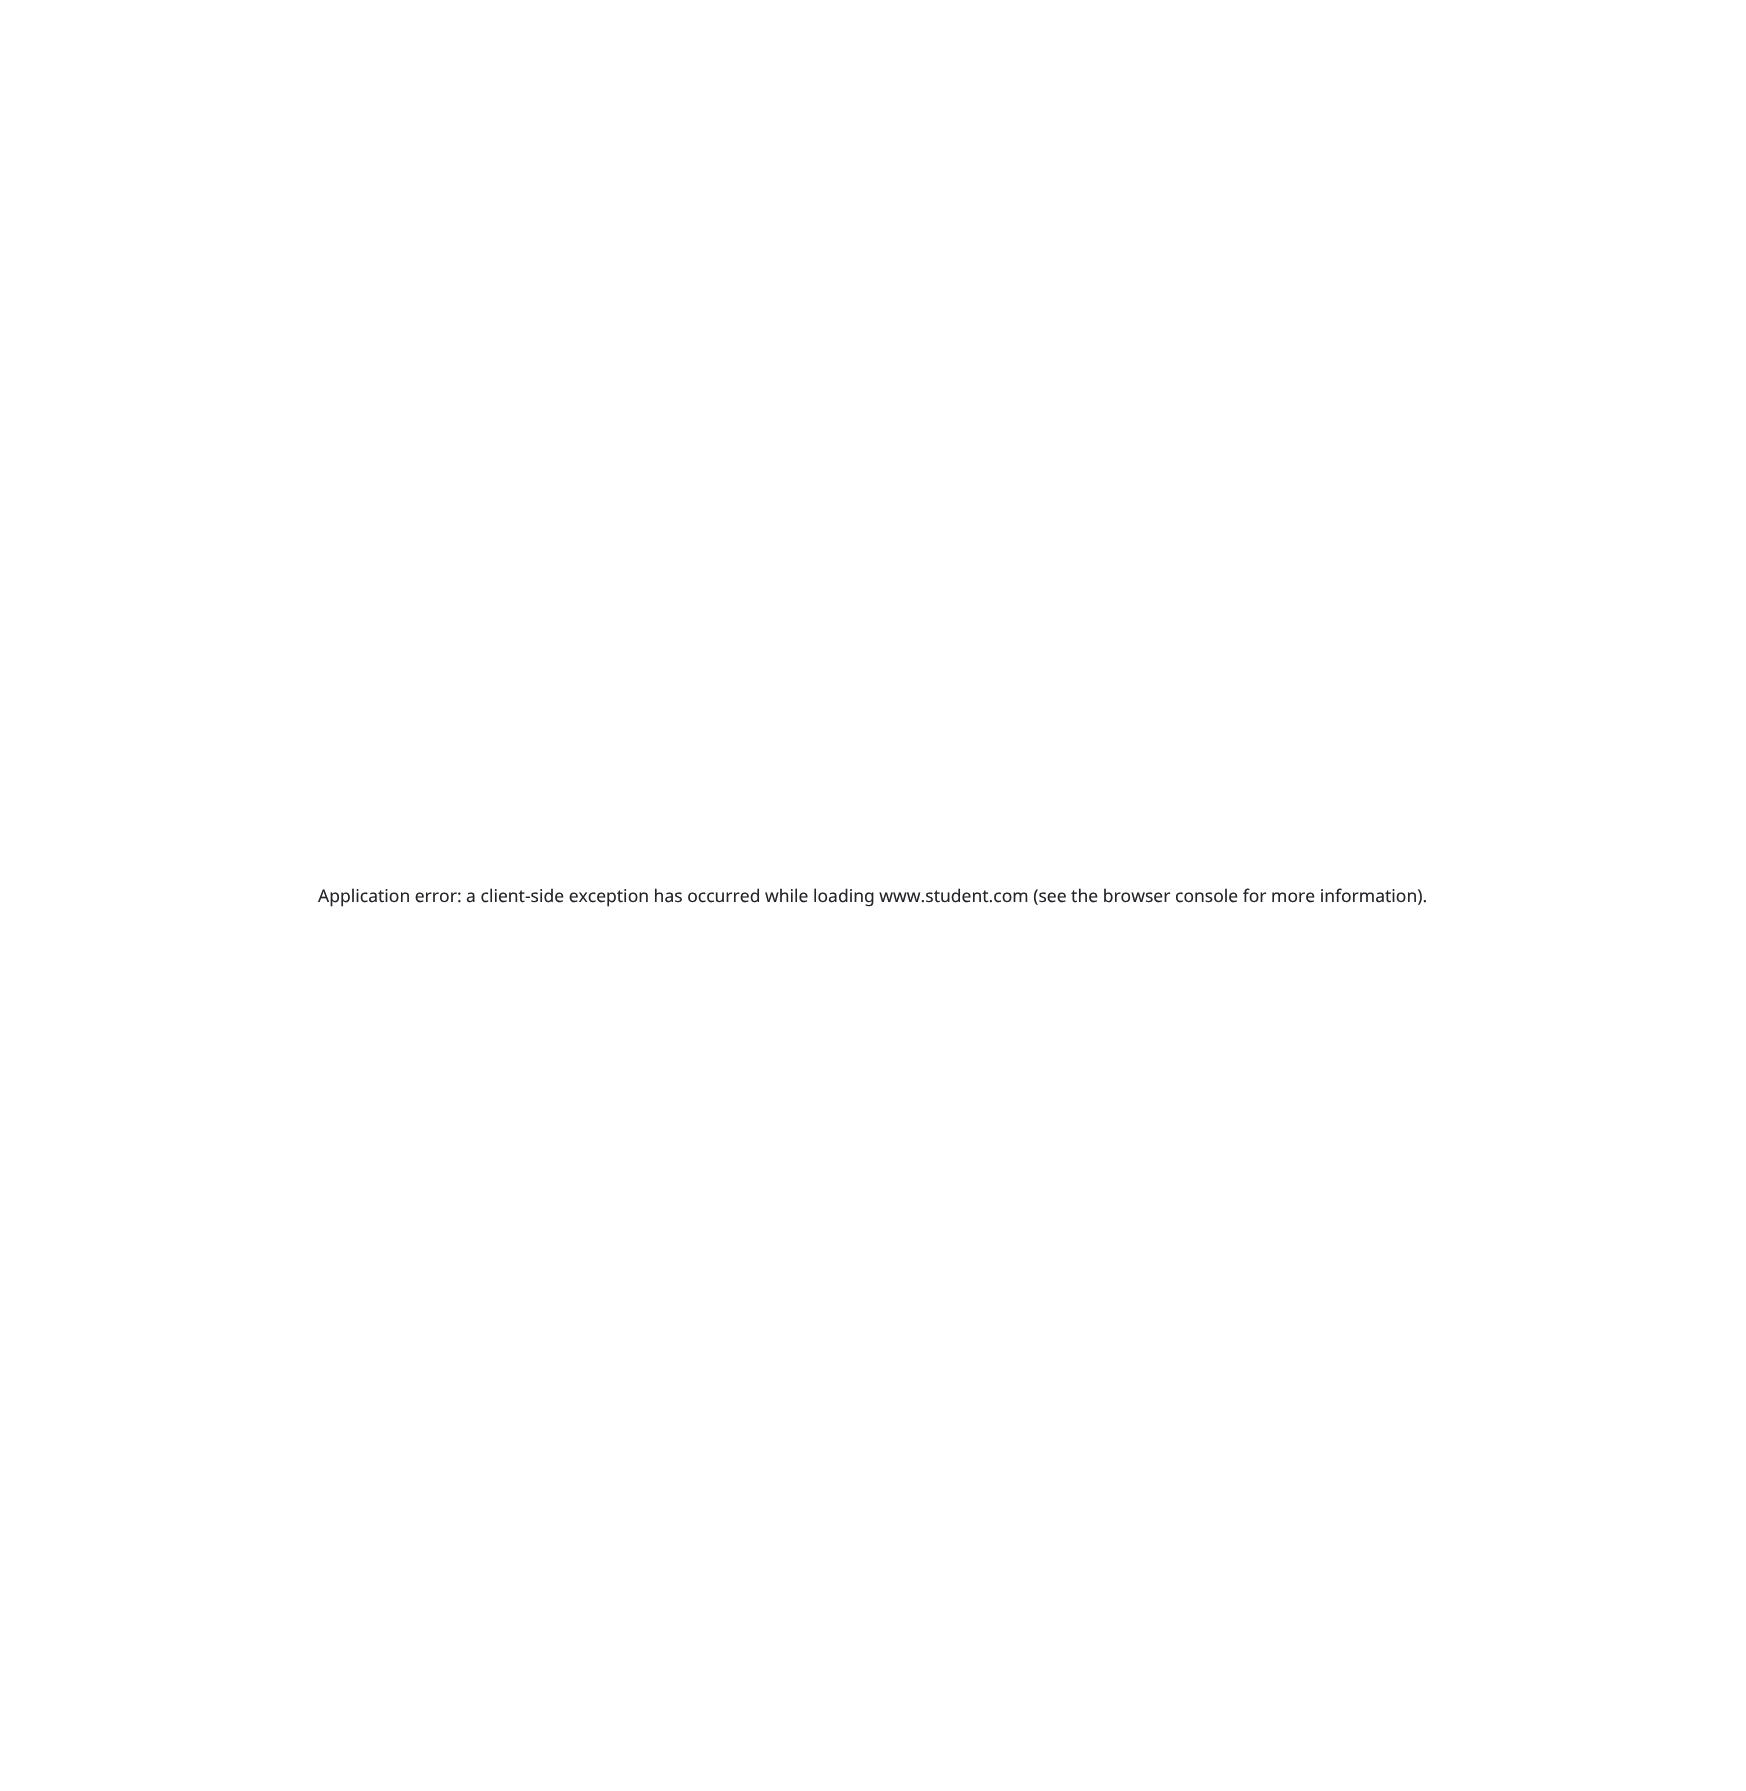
void draw(SkCanvas* canvas) {
	SkPaint fill;
	fill.setAntiAlias(true);
	auto makeFont = [&](const char* family, int weight, float size, bool italic = false) {
		SkFontStyle style(weight, SkFontStyle::kNormal_Width,
			italic ? SkFontStyle::kItalic_Slant : SkFontStyle::kUpright_Slant);
		SkFont result(fontMgr->matchFamilyStyle(family, style), size);
		result.setSubpixel(true);
		return result;
	};
	auto text = [&](const char* s, float x, float y, const SkFont& font) {
		canvas->drawString(s, x, y, font, fill);
	};
	canvas->clear(0xFFFFFFFF);
	auto font1 = makeFont("Noto Sans", 400, 17.5f);
	fill.setColor(0xFF242529);
	text("Application error: a client-side exception has occurred while loading www.student.com (see the browser console for more information).", 318, 902, font1);
}
